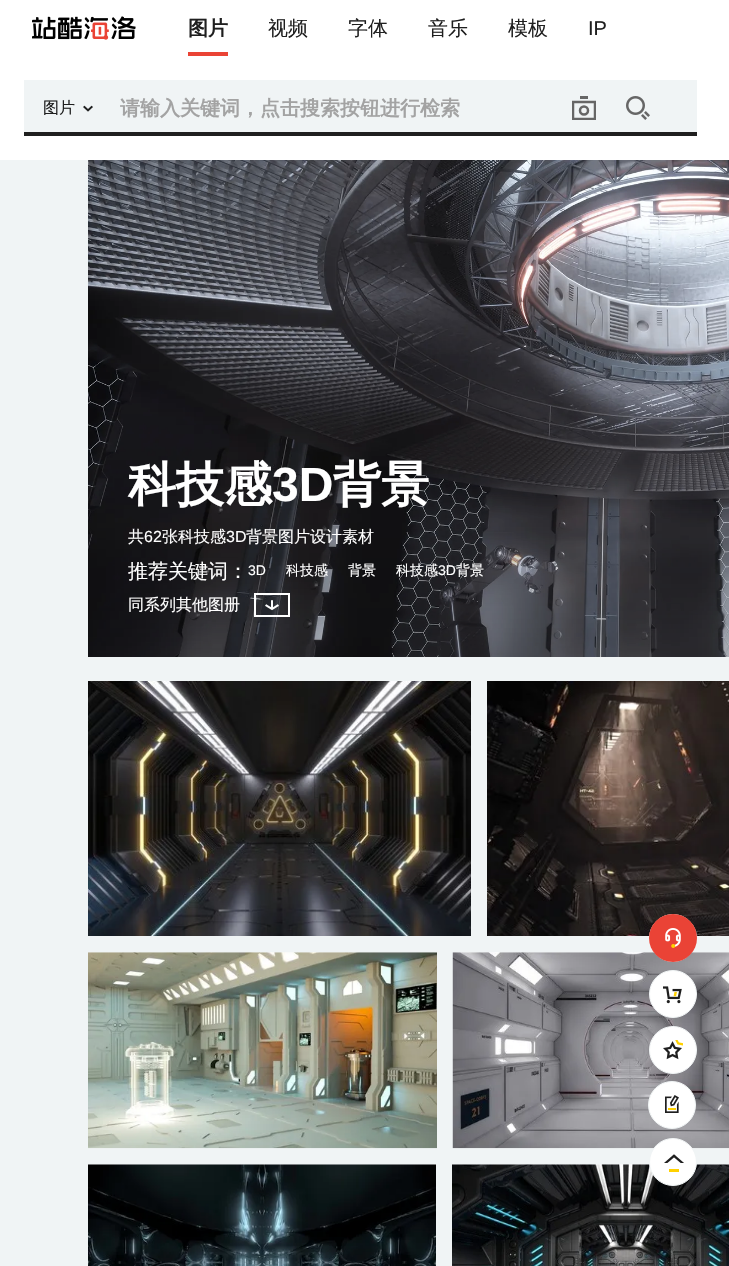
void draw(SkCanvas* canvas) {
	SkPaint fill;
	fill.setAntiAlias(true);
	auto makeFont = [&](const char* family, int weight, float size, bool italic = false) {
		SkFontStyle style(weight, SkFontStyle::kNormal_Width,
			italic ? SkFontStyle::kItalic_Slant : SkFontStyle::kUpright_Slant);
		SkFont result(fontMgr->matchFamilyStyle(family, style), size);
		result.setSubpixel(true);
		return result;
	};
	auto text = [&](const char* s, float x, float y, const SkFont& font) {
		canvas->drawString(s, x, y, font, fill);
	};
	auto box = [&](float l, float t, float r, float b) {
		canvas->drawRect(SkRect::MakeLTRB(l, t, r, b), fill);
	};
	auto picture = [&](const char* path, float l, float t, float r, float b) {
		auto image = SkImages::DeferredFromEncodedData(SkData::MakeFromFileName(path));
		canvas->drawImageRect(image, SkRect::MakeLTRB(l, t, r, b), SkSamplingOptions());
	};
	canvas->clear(0xFFFFFFFF);
	picture("image0.png", 32, 16, 136, 40);
	fill.setColor(0xFFEA4335);
	box(188, 52, 228, 56);
	fill.setColor(0xFFF0F4F5);
	box(24, 80, 697, 132);
	picture("image1.png", 83, 105, 93, 112);
	fill.setColor(0xFF1F1F1F);
	box(24, 132, 697, 136);
	canvas->save();
	canvas->clipRect(SkRect::MakeLTRB(572, 96, 596, 120));
	fill.setStyle(SkPaint::kStroke_Style);
	fill.setStrokeWidth(2.5f);
	fill.setColor(0xFF666666);
	canvas->drawPath(SkPathBuilder().moveTo(573, 102).lineTo(595, 102).lineTo(595, 119).lineTo(573, 119).close().detach(), fill);
	canvas->restore();
	fill.setStyle(SkPaint::kFill_Style);
	box(580, 96, 588, 99);
	fill.setStyle(SkPaint::kStroke_Style);
	canvas->drawCircle(584, 110.5f, 4, fill);
	picture("image2.png", 626, 96, 650, 120);
	fill.setStyle(SkPaint::kFill_Style);
	fill.setColor(0xFFF0F4F5);
	box(0, 160, 729, 1266);
	picture("image3.png", 88, 160, 729, 657);
	fill.setStyle(SkPaint::kStroke_Style);
	fill.setStrokeWidth(2);
	fill.setColor(0xFFFFFFFF);
	canvas->drawRect(SkRect::MakeLTRB(255, 594, 289, 616), fill);
	picture("image4.png", 265, 600, 279, 611);
	picture("image5.png", 88, 681, 471, 936);
	picture("image6.png", 487, 681, 729, 936);
	fill.setStyle(SkPaint::kFill_Style);
	fill.setColor(0xFFF5F7F8);
	box(88, 952, 437, 953);
	picture("image7.png", 88, 952, 437, 1149);
	box(453, 952, 729, 953);
	picture("image8.png", 452, 952, 729, 1149);
	box(88, 1164, 436, 1165);
	picture("image9.png", 88, 1164, 436, 1266);
	box(452, 1164, 729, 1165);
	picture("image10.png", 452, 1164, 729, 1266);
	fill.setStyle(SkPaint::kStroke_Style);
	fill.setStrokeWidth(1);
	fill.setColor(0xFFF0F4F5);
	canvas->drawCircle(673, 938, 23.5f, fill);
	fill.setStyle(SkPaint::kFill_Style);
	fill.setColor(0xFFEA4336);
	canvas->drawCircle(673, 938, 24, fill);
	picture("image11.png", 665, 928, 681, 948);
	fill.setColor(0xFFFFFFFF);
	canvas->drawCircle(673, 994, 23.5f, fill);
	fill.setStyle(SkPaint::kStroke_Style);
	fill.setColor(0xFFF0F4F5);
	canvas->drawCircle(673, 994, 23.5f, fill);
	picture("image12.png", 663, 986, 682, 1004);
	fill.setStyle(SkPaint::kFill_Style);
	fill.setColor(0xFFFFFFFF);
	canvas->drawCircle(673, 1050, 23.5f, fill);
	fill.setStyle(SkPaint::kStroke_Style);
	fill.setColor(0xFFF0F4F5);
	canvas->drawCircle(673, 1050, 23.5f, fill);
	picture("image13.png", 663, 1040, 683, 1060);
	fill.setStyle(SkPaint::kFill_Style);
	fill.setColor(0xFFFFFFFF);
	canvas->drawCircle(672, 1105, 23.5f, fill);
	fill.setStyle(SkPaint::kStroke_Style);
	fill.setColor(0xFFF0F4F5);
	canvas->drawCircle(672, 1105, 23.5f, fill);
	picture("image14.png", 665, 1095, 679, 1113);
	fill.setStyle(SkPaint::kFill_Style);
	fill.setColor(0xFFFFFFFF);
	canvas->drawCircle(673, 1162, 23.5f, fill);
	fill.setStyle(SkPaint::kStroke_Style);
	fill.setColor(0xFFF0F4F5);
	canvas->drawCircle(673, 1162, 23.5f, fill);
	picture("image15.png", 664, 1154, 684, 1172);
	auto font1 = makeFont("WenQuanYi Zen Hei", 700, 20);
	fill.setStyle(SkPaint::kFill_Style);
	fill.setColor(0xFF1F1F1F);
	text("图片", 188, 35, font1);
	auto font2 = makeFont("WenQuanYi Zen Hei", 500, 20);
	text("视频", 268, 35, font2);
	text("字体", 348, 35, font2);
	text("音乐", 428, 35, font2);
	text("模板", 508, 35, font2);
	auto font3 = makeFont("Liberation Sans", 400, 20);
	text("IP", 588, 35, font3);
	auto font4 = makeFont("WenQuanYi Zen Hei", 500, 16);
	text("图片", 43, 113, font4);
	fill.setColor(0xFFA3A3A3);
	text("请输入关键词，点击搜索按钮进行检索", 120, 115, font1);
	auto font5 = makeFont("WenQuanYi Zen Hei", 700, 48);
	fill.setColor(0xFFFFFFFF);
	text("科技感", 128, 501, font5);
	auto font6 = makeFont("Liberation Sans", 700, 48);
	text("3D", 272, 501, font6);
	text("背景", 333, 501, font5);
	text("共", 128, 542, font4);
	auto font7 = makeFont("Liberation Sans", 400, 16);
	text("62", 144, 542, font7);
	text("张科技感", 162, 542, font4);
	text("3D", 226, 542, font7);
	text("背景图片设计素材", 246, 542, font4);
	text("推荐关键词：", 128, 578, font2);
	auto font8 = makeFont("Liberation Sans", 400, 14);
	text("3D", 248, 575, font8);
	auto font9 = makeFont("WenQuanYi Zen Hei", 500, 14);
	text("科技感", 286, 575, font9);
	text("背景", 348, 575, font9);
	text("科技感", 396, 575, font9);
	text("3D", 438, 575, font8);
	text("背景", 456, 575, font9);
	text("同系列其他图册", 128, 610, font4);
}
